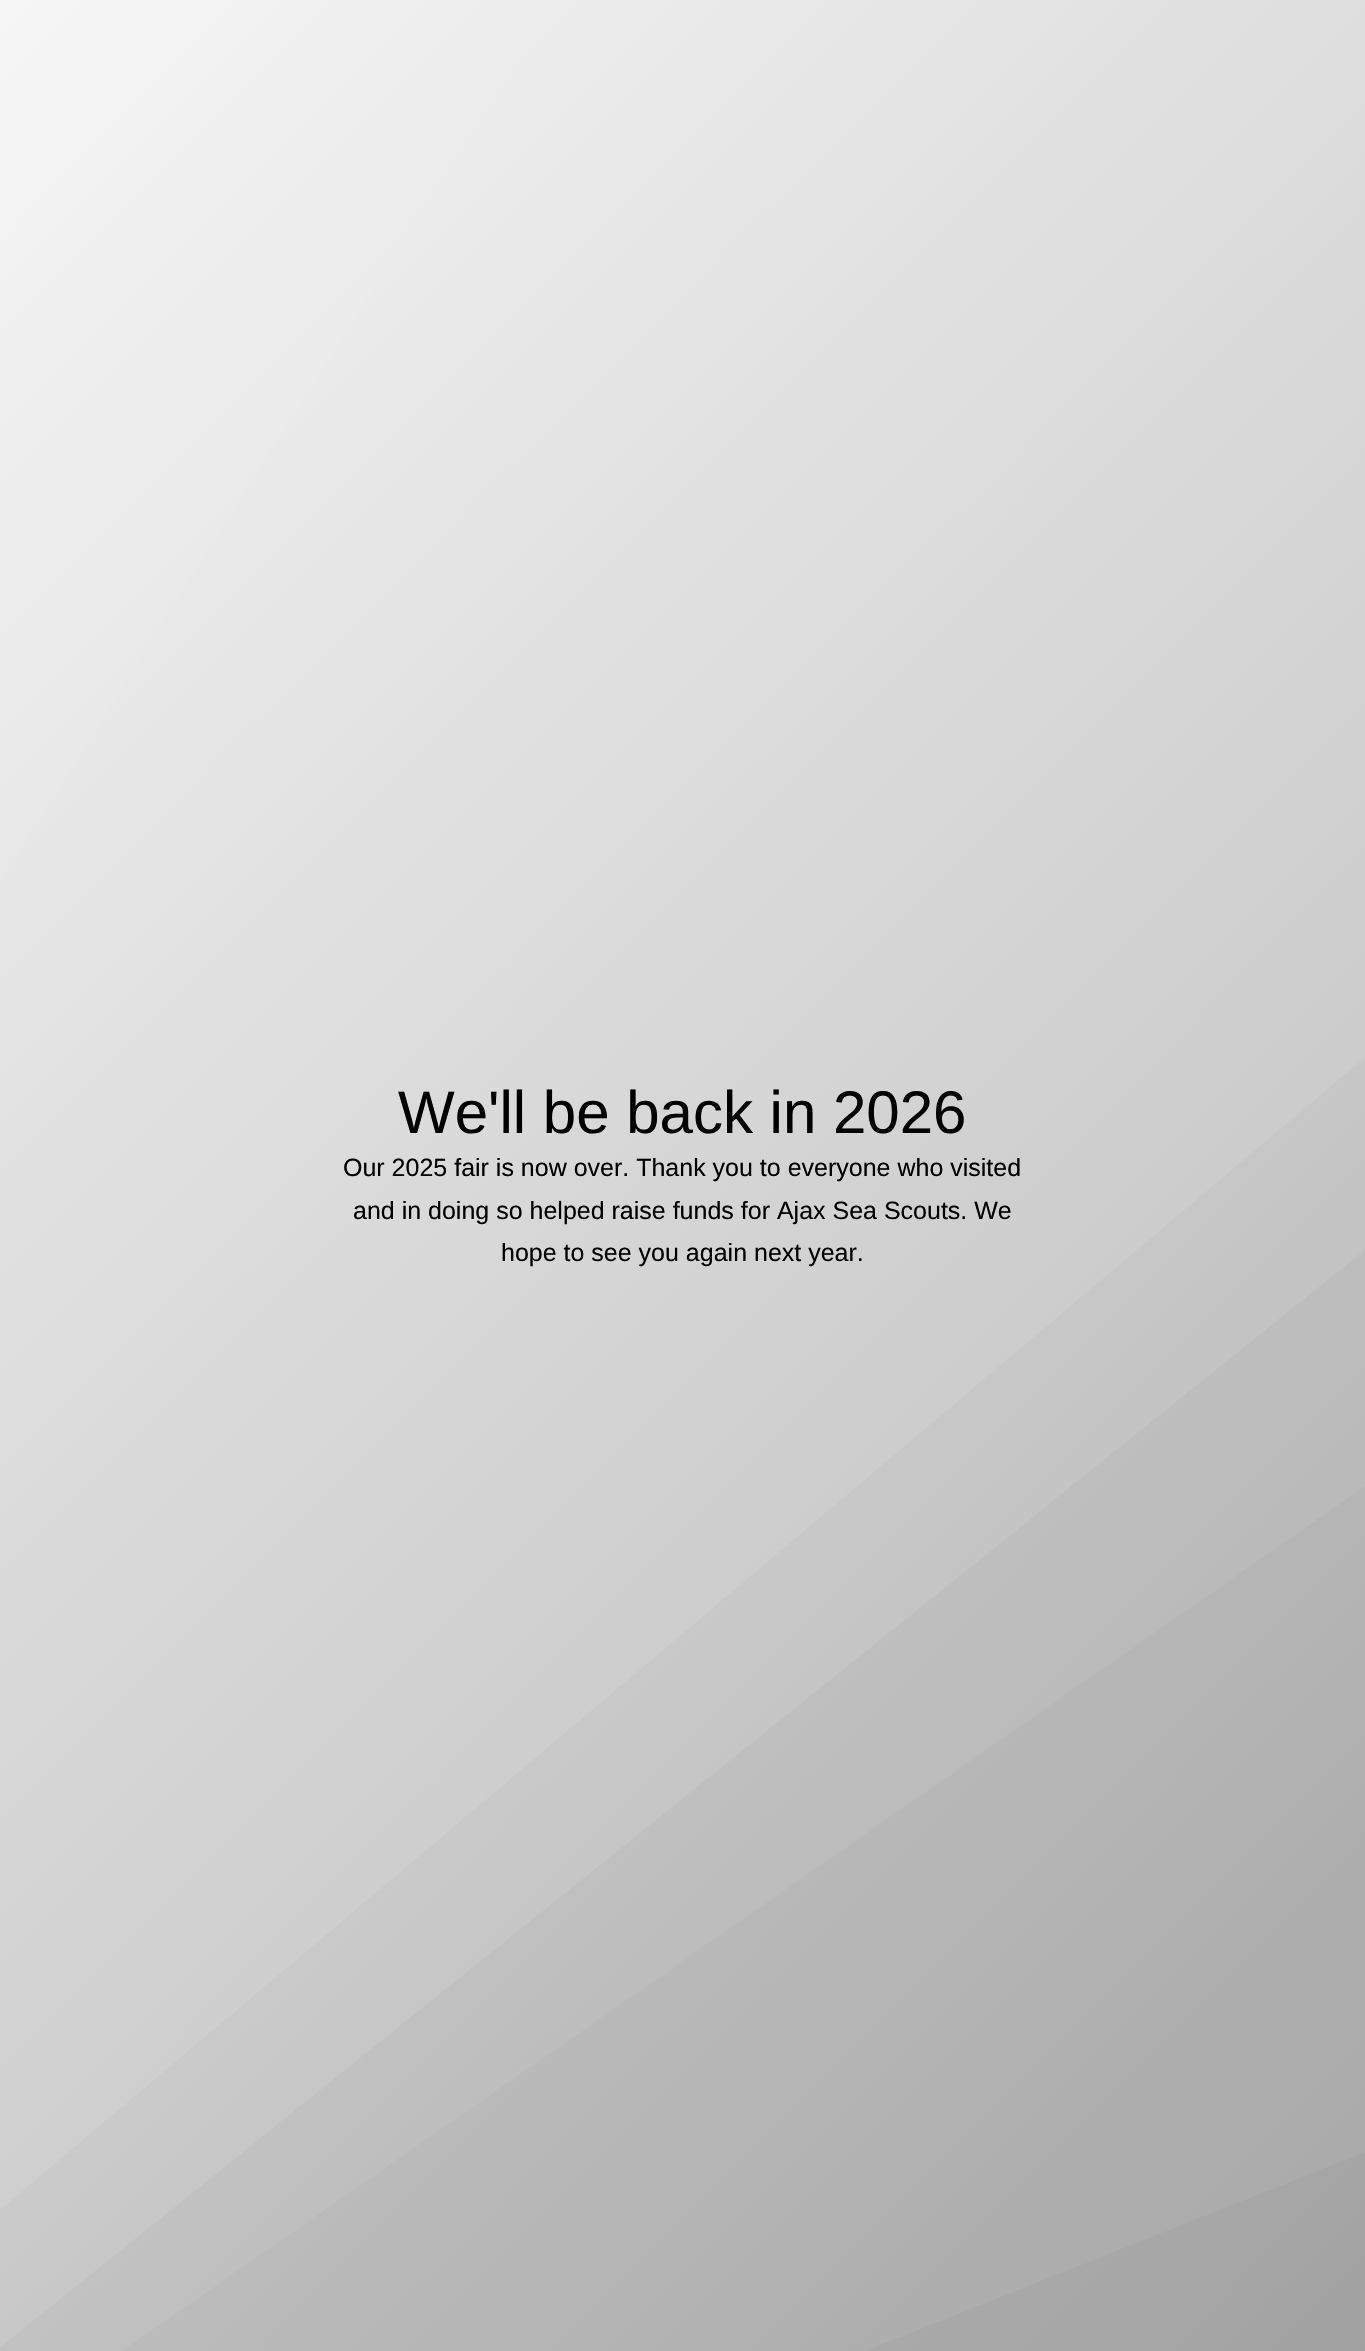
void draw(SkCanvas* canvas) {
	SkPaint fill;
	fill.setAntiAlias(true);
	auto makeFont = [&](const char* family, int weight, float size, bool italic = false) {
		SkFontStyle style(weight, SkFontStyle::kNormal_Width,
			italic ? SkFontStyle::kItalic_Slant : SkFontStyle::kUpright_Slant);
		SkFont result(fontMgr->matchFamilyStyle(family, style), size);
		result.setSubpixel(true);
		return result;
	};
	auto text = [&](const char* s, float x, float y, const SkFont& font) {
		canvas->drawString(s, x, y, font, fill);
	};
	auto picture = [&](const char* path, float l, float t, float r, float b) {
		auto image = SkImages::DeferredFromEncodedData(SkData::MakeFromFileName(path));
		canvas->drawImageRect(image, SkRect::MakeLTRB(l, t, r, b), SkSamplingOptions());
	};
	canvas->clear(0xFFFFFFFF);
	picture("image0.png", 0, 0, 1365, 2351);
	auto font1 = makeFont("Liberation Sans", 400, 60);
	fill.setColor(0xFF000000);
	text("We'll be back in 2026", 398, 1133, font1);
	auto font2 = makeFont("Liberation Sans", 400, 25);
	text("Our 2025 fair is now over. Thank you to everyone who visited", 343, 1176, font2);
	text("and in doing so helped raise funds for Ajax Sea Scouts. We", 353, 1219, font2);
	text("hope to see you again next year.", 501, 1261, font2);
}
